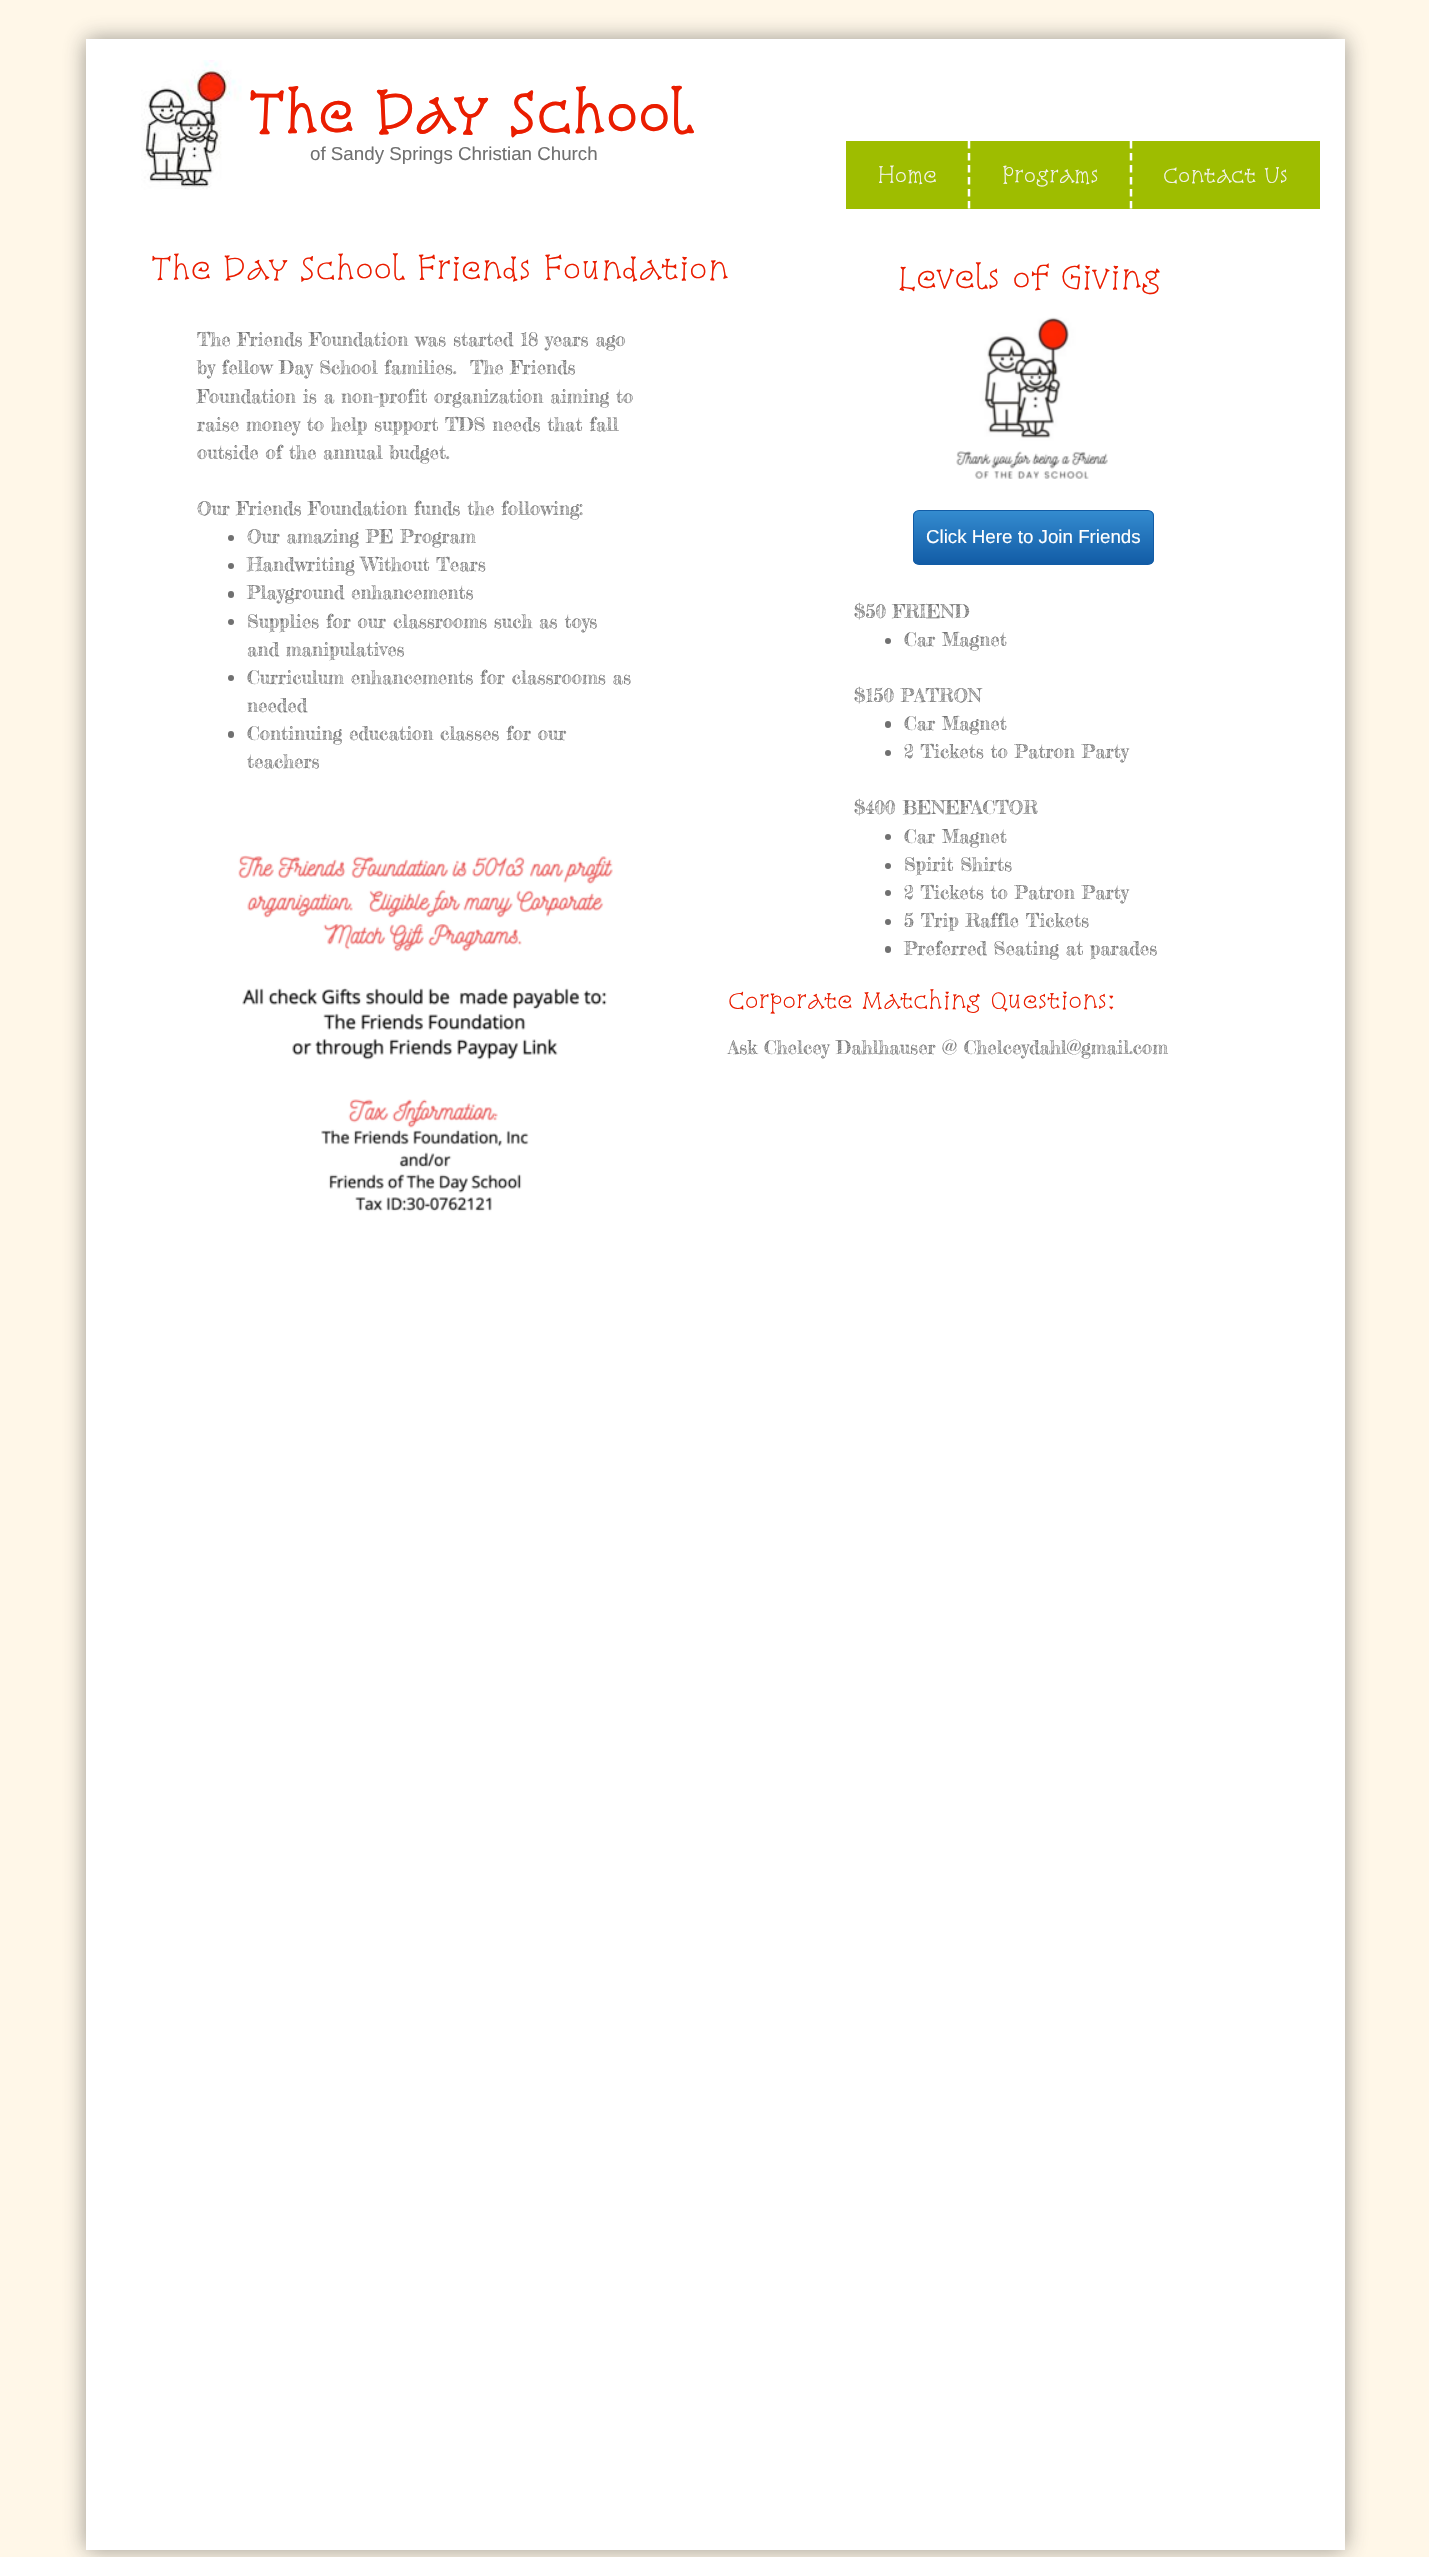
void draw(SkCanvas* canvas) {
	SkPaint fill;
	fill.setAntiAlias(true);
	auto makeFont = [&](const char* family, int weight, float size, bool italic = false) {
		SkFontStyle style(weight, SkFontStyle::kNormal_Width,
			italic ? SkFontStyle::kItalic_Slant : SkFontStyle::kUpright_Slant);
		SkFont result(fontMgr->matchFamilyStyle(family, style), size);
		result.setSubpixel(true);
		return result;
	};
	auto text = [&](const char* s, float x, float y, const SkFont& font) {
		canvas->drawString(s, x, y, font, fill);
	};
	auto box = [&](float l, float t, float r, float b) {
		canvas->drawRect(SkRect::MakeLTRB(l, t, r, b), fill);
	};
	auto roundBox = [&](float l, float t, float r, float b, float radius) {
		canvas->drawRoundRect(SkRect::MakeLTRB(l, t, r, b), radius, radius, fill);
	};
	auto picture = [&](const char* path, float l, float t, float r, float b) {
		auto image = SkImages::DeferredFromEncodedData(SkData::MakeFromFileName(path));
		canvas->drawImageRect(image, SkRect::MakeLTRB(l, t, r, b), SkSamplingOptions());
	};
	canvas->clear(0xFFFFF7E8);
	fill.setColor(0x80323232);
	fill.setMaskFilter(SkMaskFilter::MakeBlur(kNormal_SkBlurStyle, 10.5f));
	canvas->drawRect(SkRect::MakeLTRB(86, 39, 1345, 2550), fill);
	fill.setMaskFilter(nullptr);
	fill.setColor(0xFFFFFFFF);
	box(86, 39, 1345, 2550);
	picture("image0.png", 141, 60, 242, 190);
	fill.setColor(0xFF9EBD00);
	box(846, 141, 1320, 209);
	fill.setStyle(SkPaint::kStroke_Style);
	fill.setStrokeWidth(2.5f);
	fill.setColor(0xFFFFFFFF);
	fill.setPathEffect(SkDashPathEffect::Make({{7.5f, 4.5f}}, 0));
	canvas->drawPath(SkPathBuilder().moveTo(969, 141).lineTo(969, 209).detach(), fill);
	fill.setPathEffect(nullptr);
	fill.setPathEffect(SkDashPathEffect::Make({{7.5f, 4.5f}}, 0));
	canvas->drawPath(SkPathBuilder().moveTo(1131, 141).lineTo(1131, 209).detach(), fill);
	fill.setPathEffect(nullptr);
	fill.setStyle(SkPaint::kFill_Style);
	fill.setColor(0xFF707070);
	canvas->drawCircle(231, 538, 3, fill);
	canvas->drawCircle(231, 566, 3, fill);
	roundBox(228, 591, 234, 598, 3);
	canvas->drawCircle(231, 622, 3, fill);
	canvas->drawCircle(231, 678, 3, fill);
	roundBox(228, 731, 234, 738, 3);
	picture("image1.png", 956, 317, 1108, 479);
	canvas->save();
	canvas->clipPath(SkPathBuilder().moveTo(919, 510).lineTo(1148, 510).cubicTo(1151.5f, 510, 1154, 512.5f, 1154, 516).lineTo(1154, 559).cubicTo(1154, 562.5f, 1151.5f, 565, 1148, 565).lineTo(919, 565).cubicTo(915.5f, 565, 913, 562.5f, 913, 559).lineTo(913, 516).cubicTo(913, 512.5f, 915.5f, 510, 919, 510).close().detach(), true);
	{
		const SkColor colors[] = {0xFF348BCF, 0xFF125CA6};
		const float stops[] = {0, 1};
		const SkPoint ends[] = {{1033, 511}, {1033, 564}};
		fill.setShader(SkGradientShader::MakeLinear(ends, colors, stops, 2, SkTileMode::kClamp));
		fill.setAlpha(255);
	}
	box(913, 511, 1154, 564);
	canvas->restore();
	fill.setStyle(SkPaint::kStroke_Style);
	fill.setStrokeWidth(1);
	fill.setShader(nullptr);
	fill.setColor(0xFF125CA6);
	canvas->drawRoundRect(SkRect::MakeLTRB(913.5f, 510.5f, 1153.5f, 564.5f), 5.5f, 5.5f, fill);
	fill.setStyle(SkPaint::kFill_Style);
	fill.setColor(0xFF707070);
	canvas->drawCircle(888, 641, 3, fill);
	roundBox(885, 721, 891, 728, 3);
	canvas->drawCircle(888, 753, 3, fill);
	canvas->drawCircle(888, 837, 3, fill);
	canvas->drawCircle(888, 866, 3, fill);
	canvas->drawCircle(888, 893, 3, fill);
	canvas->drawCircle(888, 922, 3, fill);
	roundBox(885, 946, 891, 953, 3);
	picture("image2.png", 238, 855, 613, 1212);
	auto font1 = makeFont("Snowburst One", 700, 52.5f);
	fill.setColor(0xFFEA1D00);
	text("The Day School", 248, 134, font1);
	auto font2 = makeFont("Liberation Sans", 400, 18.75f);
	fill.setColor(0xFF707070);
	text("of Sandy Springs Christian Church", 310, 160, font2);
	auto font3 = makeFont("Snowburst One", 400, 20);
	fill.setColor(0xFFF6F5F2);
	text("Home", 878, 183, font3);
	text("Programs", 1002, 183, font3);
	text("Contact Us", 1163, 183, font3);
	auto font4 = makeFont("Snowburst One", 400, 30);
	fill.setColor(0xFFEA1D00);
	text("The Day School Friends Foundation", 151, 280, font4);
	text("Levels of Giving", 898, 289, font4);
	auto font5 = makeFont("Fredericka the Great", 400, 18.75f);
	fill.setColor(0xFF707070);
	text("The Friends Foundation was started 18 years ago", 197, 346, font5);
	text("by fellow Day School families.  The Friends", 197, 374, font5);
	text("Foundation is a non-profit organization aiming to", 197, 403, font5);
	text("raise money to help support TDS needs that fall", 197, 431, font5);
	text("outside of the annual budget.", 197, 459, font5);
	text("Our Friends Foundation funds the following:", 197, 515, font5);
	text("Our amazing PE Program", 247, 543, font5);
	text("Handwriting Without Tears", 247, 571, font5);
	text("Playground enhancements", 247, 599, font5);
	text("Supplies for our classrooms such as toys", 247, 628, font5);
	text("and manipulatives", 247, 656, font5);
	text("Curriculum enhancements for classrooms as", 247, 684, font5);
	text("needed", 247, 712, font5);
	text("Continuing education classes for our", 247, 740, font5);
	text("teachers", 247, 768, font5);
	fill.setColor(0xFFFFFFFF);
	text("Click Here to Join Friends", 926, 543, font2);
	fill.setColor(0xFF707070);
	text("$50 FRIEND", 854, 618, font5);
	text("Car Magnet", 904, 646, font5);
	text("$150 PATRON", 854, 702, font5);
	text("Car Magnet", 904, 730, font5);
	text("2 Tickets to Patron Party", 904, 758, font5);
	text("$400 BENEFACTOR", 854, 814, font5);
	text("Car Magnet", 904, 843, font5);
	text("Spirit Shirts", 904, 871, font5);
	text("2 Tickets to Patron Party", 904, 899, font5);
	text("5 Trip Raffle Tickets", 904, 927, font5);
	text("Preferred Seating at parades", 904, 955, font5);
	auto font6 = makeFont("Snowburst One", 400, 22.5f);
	fill.setColor(0xFFEA1D00);
	text("Corporate Matching Questions:", 728, 1009, font6);
	fill.setColor(0xFF707070);
	text("Ask Chelcey Dahlhauser @ Chelceydahl@gmail.com", 728, 1054, font5);
}
